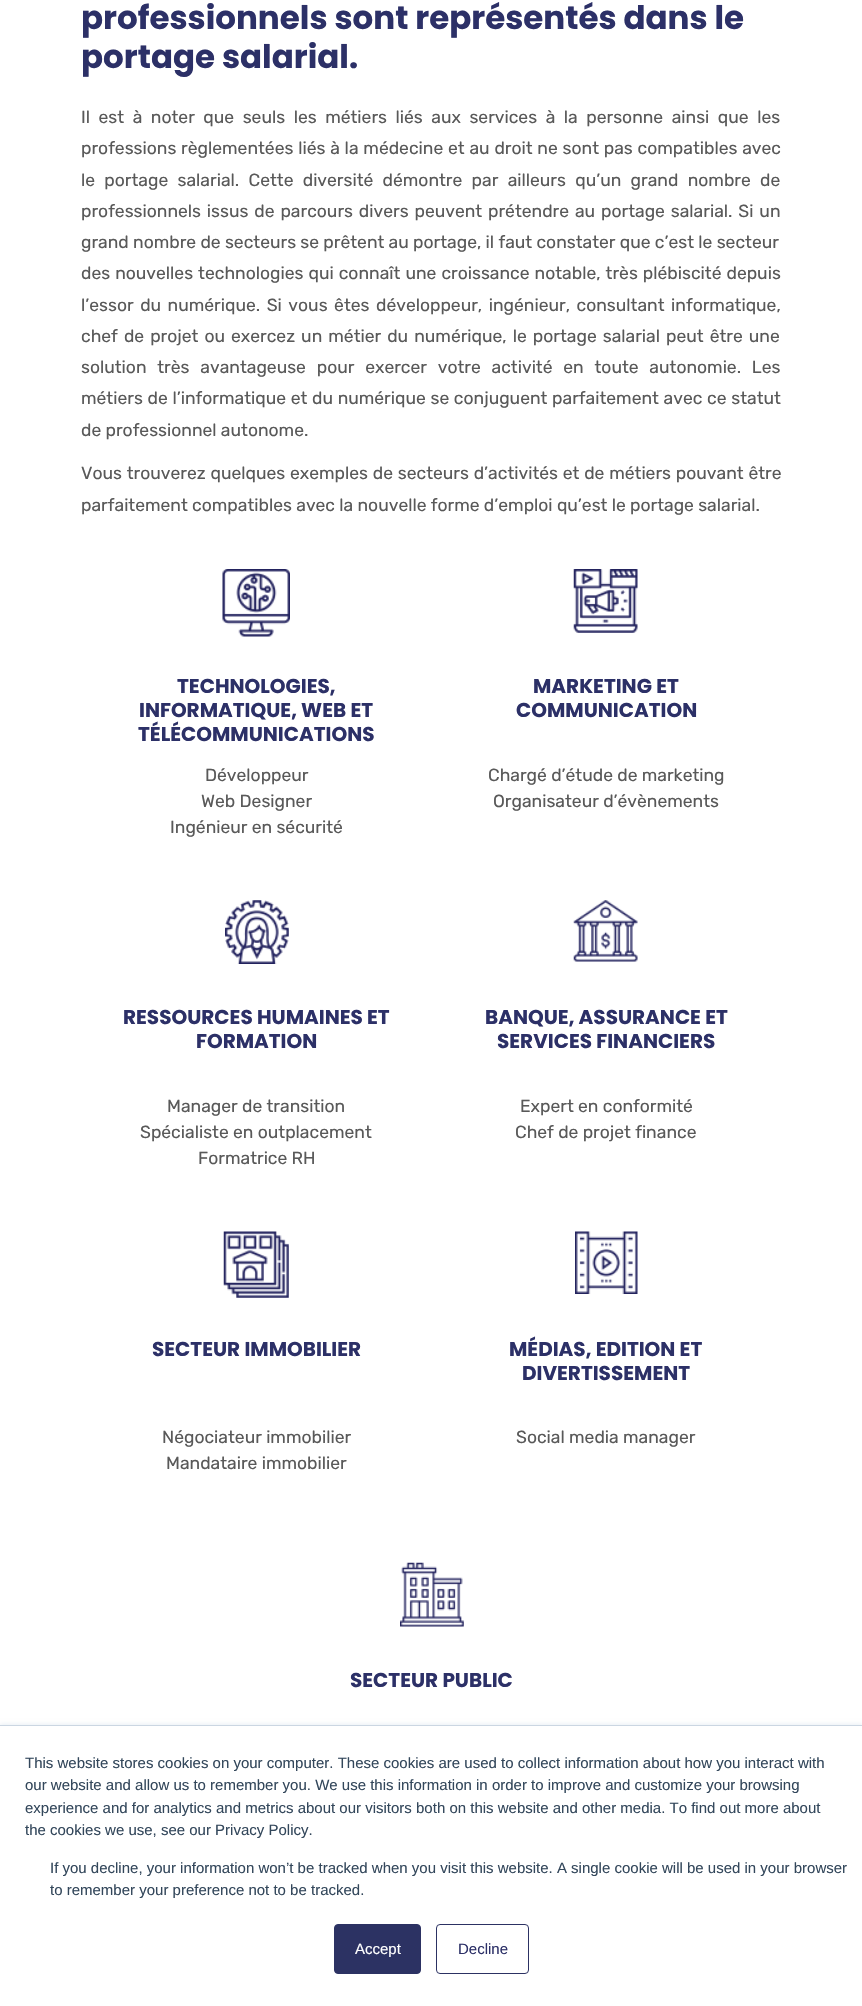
void draw(SkCanvas* canvas) {
	SkPaint fill;
	fill.setAntiAlias(true);
	auto makeFont = [&](const char* family, int weight, float size, bool italic = false) {
		SkFontStyle style(weight, SkFontStyle::kNormal_Width,
			italic ? SkFontStyle::kItalic_Slant : SkFontStyle::kUpright_Slant);
		SkFont result(fontMgr->matchFamilyStyle(family, style), size);
		result.setSubpixel(true);
		return result;
	};
	auto text = [&](const char* s, float x, float y, const SkFont& font) {
		canvas->drawString(s, x, y, font, fill);
	};
	auto spacedText = [&](const char* s, float x, float y, const SkFont& font, const SkPaint& ink, float letter, float word) {
		std::vector<SkGlyphID> glyphs(font.countText(s, strlen(s), SkTextEncoding::kUTF8));
		std::vector<float> xs(glyphs.size());
		font.textToGlyphs(s, strlen(s), SkTextEncoding::kUTF8, glyphs);
		font.getXPos(glyphs, xs, x);
		float extra = 0;
		for (size_t i = 0; i < glyphs.size(); i++) {
			xs[i] += extra;
			extra += letter + word * (glyphs[i] == font.unicharToGlyph(' '));
		}
		canvas->drawTextBlob(SkTextBlob::MakeFromPosHGlyphs(glyphs, xs, y, font), 0, 0, ink);
	};
	auto box = [&](float l, float t, float r, float b) {
		canvas->drawRect(SkRect::MakeLTRB(l, t, r, b), fill);
	};
	auto picture = [&](const char* path, float l, float t, float r, float b) {
		auto image = SkImages::DeferredFromEncodedData(SkData::MakeFromFileName(path));
		canvas->drawImageRect(image, SkRect::MakeLTRB(l, t, r, b), SkSamplingOptions());
	};
	canvas->clear(0xFFFFFFFF);
	picture("image0.png", 222, 569, 290, 637);
	picture("image1.png", 573, 569, 638, 633);
	picture("image2.png", 225, 900, 289, 964);
	picture("image3.png", 573, 900, 638, 962);
	picture("image4.png", 223, 1231, 289, 1298);
	picture("image5.png", 575, 1231, 638, 1294);
	picture("image6.png", 400, 1562, 464, 1627);
	fill.setColor(0xFFEAF0F6);
	fill.setMaskFilter(SkMaskFilter::MakeBlur(kNormal_SkBlurStyle, 2));
	canvas->drawRect(SkRect::MakeLTRB(0, 1724, 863, 2005), fill);
	fill.setMaskFilter(nullptr);
	fill.setColor(0xFFFFFFFF);
	box(0, 1726, 862, 2006);
	fill.setColor(0xFFCBD6E2);
	box(0, 1725, 862, 1726);
	fill.setColor(0xFF2C3263);
	canvas->drawRoundRect(SkRect::MakeLTRB(334.5f, 1924.5f, 420.5f, 1973.5f), 3.5f, 3.5f, fill);
	fill.setStyle(SkPaint::kStroke_Style);
	fill.setStrokeWidth(1);
	canvas->drawRoundRect(SkRect::MakeLTRB(334.5f, 1924.5f, 420.5f, 1973.5f), 3.5f, 3.5f, fill);
	canvas->drawRoundRect(SkRect::MakeLTRB(436.5f, 1924.5f, 528.5f, 1973.5f), 3.5f, 3.5f, fill);
	auto font1 = makeFont("Poppins", 700, 32.5f);
	fill.setStyle(SkPaint::kFill_Style);
	fill.setColor(0xFF2C3067);
	text("professionnels sont représentés dans le", 81, 29, font1);
	text("portage salarial.", 81, 68, font1);
	auto font2 = makeFont("Rubik", 400, 17.5f);
	fill.setColor(0xFF595959);
	spacedText("Il est à noter que seuls les métiers liés aux services à la personne ainsi que les", 81, 123, font2, fill, 0, 4.25f);
	spacedText("professions règlementées liés à la médecine et au droit ne sont pas compatibles avec", 81, 154, font2, fill, 0, 0.5f);
	spacedText("le portage salarial. Cette diversité démontre par ailleurs qu’un grand nombre de", 81, 186, font2, fill, 0, 5);
	spacedText("professionnels issus de parcours divers peuvent prétendre au portage salarial. Si un", 81, 217, font2, fill, 0, 1.6f);
	text("grand nombre de secteurs se prêtent au portage, il faut constater que c’est le secteur", 81, 248, font2);
	spacedText("des nouvelles technologies qui connaît une croissance notable, très plébiscité depuis", 81, 279, font2, fill, 0, 0.75f);
	spacedText("l’essor du numérique. Si vous êtes développeur, ingénieur, consultant informatique,", 81, 311, font2, fill, 0, 2.25f);
	spacedText("chef de projet ou exercez un métier du numérique, le portage salarial peut être une", 81, 342, font2, fill, 0, 1.75f);
	spacedText("solution très avantageuse pour exercer votre activité en toute autonomie. Les", 81, 373, font2, fill, 0, 6.5f);
	spacedText("métiers de l’informatique et du numérique se conjuguent parfaitement avec ce statut", 81, 404, font2, fill, 0, 0.4f);
	text("de professionnel autonome.", 81, 436, font2);
	spacedText("Vous trouverez quelques exemples de secteurs d’activités et de métiers pouvant être", 81, 479, font2, fill, 0, 0.5f);
	text("parfaitement compatibles avec la nouvelle forme d’emploi qu’est le portage salarial.", 81, 511, font2);
	auto font3 = makeFont("Poppins", 700, 20);
	fill.setColor(0xFF2C3067);
	text("TECHNOLOGIES,", 177, 693, font3);
	text("INFORMATIQUE, WEB ET", 139, 717, font3);
	text("TÉLÉCOMMUNICATIONS", 138, 741, font3);
	fill.setColor(0xFF595959);
	text("Développeur", 205, 781, font2);
	text("Web Designer", 201, 807, font2);
	text("Ingénieur en sécurité", 170, 833, font2);
	fill.setColor(0xFF2C3067);
	text("MARKETING ET", 533, 693, font3);
	text("COMMUNICATION", 516, 717, font3);
	fill.setColor(0xFF595959);
	text("Chargé d’étude de marketing", 488, 781, font2);
	text("Organisateur d’évènements", 493, 807, font2);
	fill.setColor(0xFF2C3067);
	text("RESSOURCES HUMAINES ET", 123, 1024, font3);
	text("FORMATION", 196, 1048, font3);
	fill.setColor(0xFF595959);
	text("Manager de transition", 167, 1112, font2);
	text("Spécialiste en outplacement", 140, 1138, font2);
	text("Formatrice RH", 198, 1164, font2);
	fill.setColor(0xFF2C3067);
	text("BANQUE, ASSURANCE ET", 485, 1024, font3);
	text("SERVICES FINANCIERS", 497, 1048, font3);
	fill.setColor(0xFF595959);
	text("Expert en conformité", 520, 1112, font2);
	text("Chef de projet finance", 515, 1138, font2);
	fill.setColor(0xFF2C3067);
	text("SECTEUR IMMOBILIER", 152, 1356, font3);
	fill.setColor(0xFF595959);
	text("Négociateur immobilier", 162, 1443, font2);
	text("Mandataire immobilier", 166, 1469, font2);
	fill.setColor(0xFF2C3067);
	text("MÉDIAS, EDITION ET", 509, 1356, font3);
	text("DIVERTISSEMENT", 522, 1380, font3);
	fill.setColor(0xFF595959);
	text("Social media manager", 516, 1443, font2);
	fill.setColor(0xFF2C3067);
	text("SECTEUR PUBLIC", 350, 1687, font3);
	auto font4 = makeFont("Liberation Sans", 400, 15);
	fill.setColor(0xFF33475B);
	text("This website stores cookies on your computer. These cookies are used to collect information about how you interact with", 25, 1768, font4);
	text("our website and allow us to remember you. We use this information in order to improve and customize your browsing", 25, 1790, font4);
	text("experience and for analytics and metrics about our visitors both on this website and other media. To find out more about", 25, 1813, font4);
	text("the cookies we use, see our Privacy Policy.", 25, 1835, font4);
	text("If you decline, your information won’t be tracked when you visit this website. A single cookie will be used in your browser", 50, 1873, font4);
	text("to remember your preference not to be tracked.", 50, 1895, font4);
	fill.setColor(0xFFFFFFFF);
	text("Accept", 355, 1954, font4);
	fill.setColor(0xFF2C3067);
	text("Decline", 458, 1954, font4);
}
